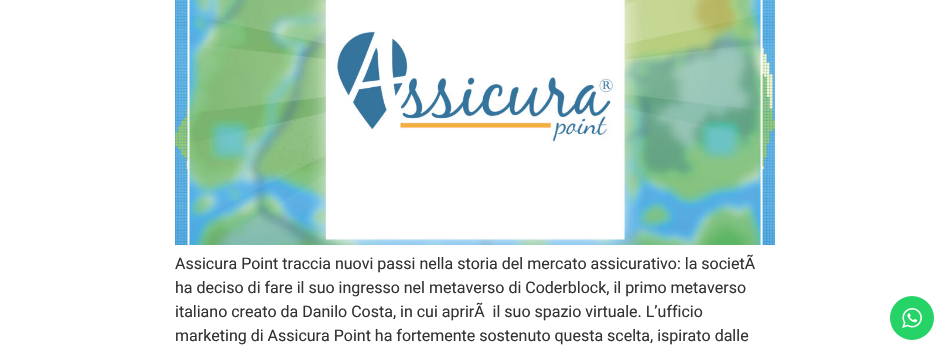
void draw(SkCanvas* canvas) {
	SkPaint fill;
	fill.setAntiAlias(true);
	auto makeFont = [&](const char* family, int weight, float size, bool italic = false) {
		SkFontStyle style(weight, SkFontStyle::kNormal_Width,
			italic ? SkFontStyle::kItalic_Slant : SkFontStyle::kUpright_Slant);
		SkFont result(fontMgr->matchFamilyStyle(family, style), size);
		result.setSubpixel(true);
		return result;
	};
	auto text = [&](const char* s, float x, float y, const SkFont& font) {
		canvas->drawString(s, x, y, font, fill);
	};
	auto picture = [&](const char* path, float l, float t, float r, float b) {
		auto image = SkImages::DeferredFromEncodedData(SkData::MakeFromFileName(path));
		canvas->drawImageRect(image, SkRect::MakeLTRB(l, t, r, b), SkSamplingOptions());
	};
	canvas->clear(0xFFFFFFFF);
	picture("image0.png", 175, 0, 775, 245);
	fill.setColor(0xFF25D366);
	canvas->drawCircle(912, 318, 22, fill);
	picture("image1.png", 902, 308, 922, 328);
	auto font1 = makeFont("Roboto", 400, 16);
	fill.setColor(0xFF333333);
	text("Assicura Point traccia nuovi passi nella storia del mercato assicurativo: la societÃ", 175, 269, font1);
	text("ha deciso di fare il suo ingresso nel metaverso di Coderblock, il primo metaverso", 175, 293, font1);
	text("italiano creato da Danilo Costa, in cui aprirÃ  il suo spazio virtuale. L’ufficio", 175, 317, font1);
	text("marketing di Assicura Point ha fortemente sostenuto questa scelta, ispirato dalle", 175, 341, font1);
}
